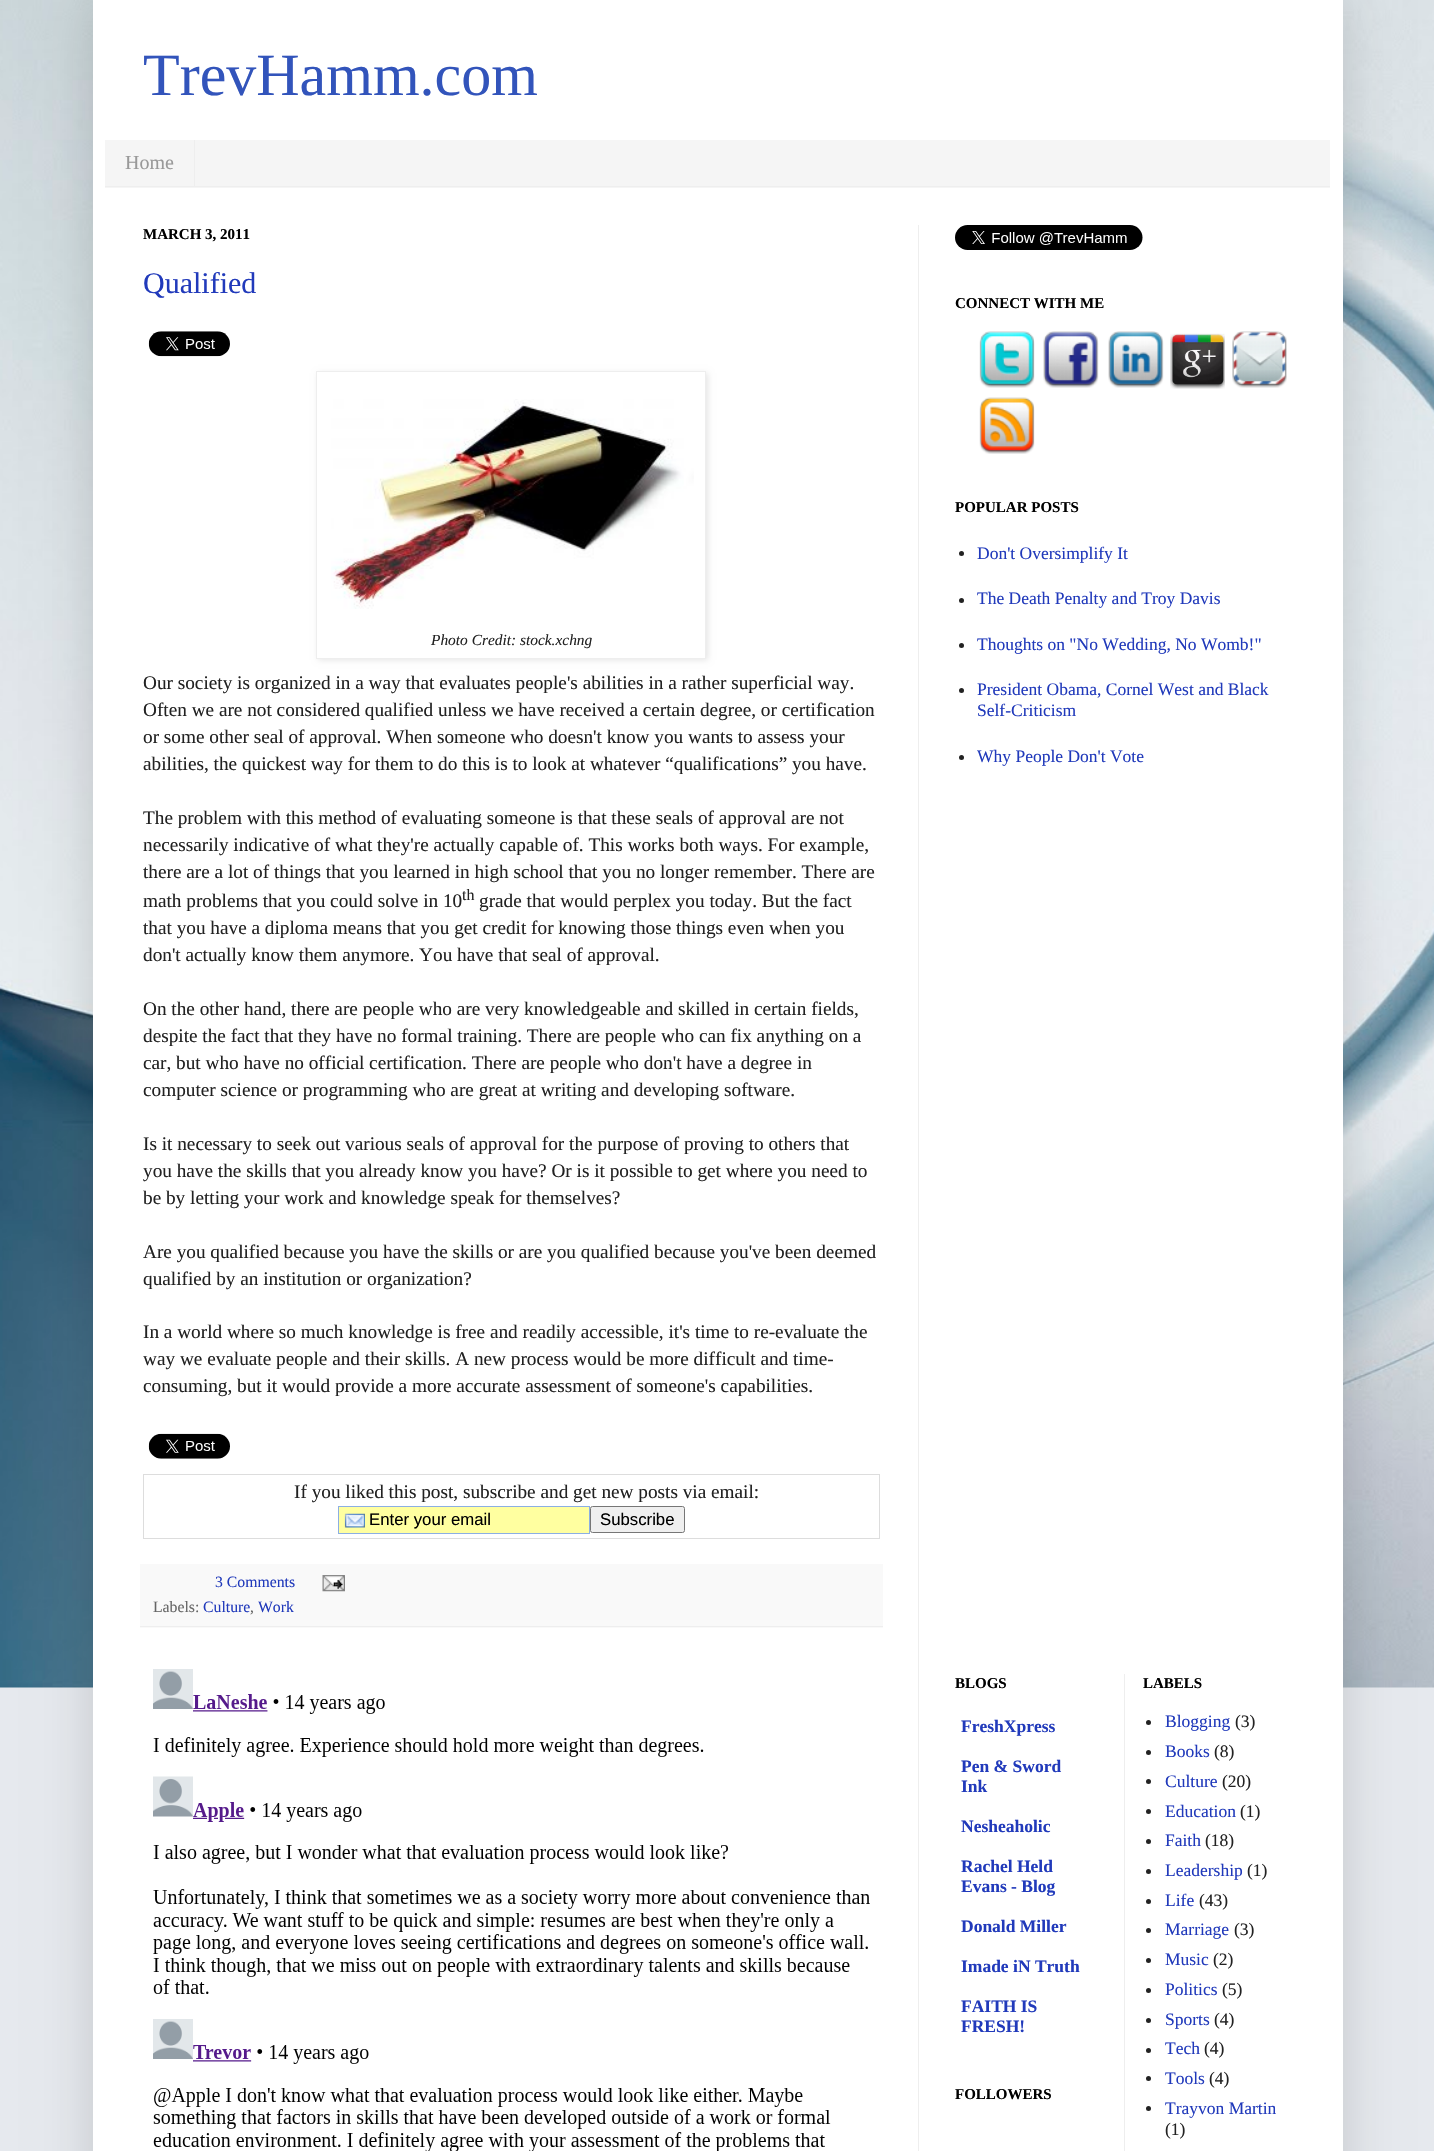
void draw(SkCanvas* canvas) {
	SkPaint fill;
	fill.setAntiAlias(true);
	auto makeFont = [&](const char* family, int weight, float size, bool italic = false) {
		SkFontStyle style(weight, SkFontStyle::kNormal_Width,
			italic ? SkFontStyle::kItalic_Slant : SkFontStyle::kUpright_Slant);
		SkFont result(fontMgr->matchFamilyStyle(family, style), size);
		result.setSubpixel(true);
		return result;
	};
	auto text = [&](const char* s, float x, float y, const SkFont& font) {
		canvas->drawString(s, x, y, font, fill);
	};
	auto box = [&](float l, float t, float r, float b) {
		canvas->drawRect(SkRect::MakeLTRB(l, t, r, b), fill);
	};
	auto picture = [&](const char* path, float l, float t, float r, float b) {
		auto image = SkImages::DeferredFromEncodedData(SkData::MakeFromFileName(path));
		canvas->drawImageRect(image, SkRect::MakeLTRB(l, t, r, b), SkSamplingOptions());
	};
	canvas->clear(0xFFE6E9EE);
	picture("image0.png", 0, 500, 1434, 1688);
	picture("image1.png", 0, 0, 1434, 500);
	fill.setColor(0x26000000);
	fill.setMaskFilter(SkMaskFilter::MakeBlur(kNormal_SkBlurStyle, 25));
	canvas->drawRect(SkRect::MakeLTRB(93, 0, 1343, 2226), fill);
	fill.setMaskFilter(nullptr);
	fill.setColor(0xFFFFFFFF);
	box(93, 0, 1343, 2151);
	fill.setColor(0xFFF5F5F5);
	box(105, 140, 1330, 188);
	fill.setColor(0xFFEEEEEE);
	box(105, 186, 1330, 187);
	box(194, 140, 195, 186);
	box(918, 225, 919, 2151);
	picture("image2.png", 148, 331, 230, 357);
	fill.setColor(0x1A000000);
	fill.setMaskFilter(SkMaskFilter::MakeBlur(kNormal_SkBlurStyle, 3));
	canvas->drawRect(SkRect::MakeLTRB(318, 373, 708, 660), fill);
	fill.setMaskFilter(nullptr);
	fill.setColor(0xFFFFFFFF);
	canvas->drawRect(SkRect::MakeLTRB(316.5f, 371.5f, 705.5f, 658.5f), fill);
	fill.setStyle(SkPaint::kStroke_Style);
	fill.setStrokeWidth(1);
	fill.setColor(0xFFEEEEEE);
	canvas->drawRect(SkRect::MakeLTRB(316.5f, 371.5f, 705.5f, 658.5f), fill);
	picture("image3.png", 331, 399, 694, 609);
	picture("image4.png", 148, 1433, 230, 1459);
	fill.setColor(0xFFDDDDDD);
	canvas->drawRect(SkRect::MakeLTRB(143.5f, 1474.5f, 879.5f, 1538.5f), fill);
	fill.setStyle(SkPaint::kFill_Style);
	fill.setColor(0xFFFFFFA0);
	box(339, 1507, 589, 1533);
	picture("image5.png", 344, 1513, 365, 1528);
	fill.setStyle(SkPaint::kStroke_Style);
	fill.setColor(0xFF8CAFE3);
	canvas->drawRect(SkRect::MakeLTRB(338.5f, 1506.5f, 589.5f, 1533.5f), fill);
	fill.setStyle(SkPaint::kFill_Style);
	fill.setColor(0xFFEFEFEF);
	canvas->drawRoundRect(SkRect::MakeLTRB(590.5f, 1506.5f, 684.5f, 1532.5f), 2, 2, fill);
	fill.setStyle(SkPaint::kStroke_Style);
	fill.setColor(0xFF767676);
	canvas->drawRoundRect(SkRect::MakeLTRB(590.5f, 1506.5f, 684.5f, 1532.5f), 2, 2, fill);
	fill.setStyle(SkPaint::kFill_Style);
	fill.setColor(0xFFF9F9F9);
	box(140, 1564, 883, 1628);
	fill.setColor(0xFFEEEEEE);
	box(140, 1626, 883, 1627);
	picture("image6.png", 322, 1575, 345, 1592);
	picture("image7.png", 153, 1669, 870, 2151);
	picture("image8.png", 955, 225, 1143, 250);
	picture("image9.png", 979, 331, 1035, 388);
	picture("image10.png", 1043, 331, 1099, 388);
	picture("image11.png", 1108, 331, 1164, 388);
	picture("image12.png", 1170, 333, 1225, 389);
	picture("image13.png", 1232, 331, 1287, 388);
	picture("image14.png", 979, 397, 1035, 454);
	fill.setColor(0xFF222222);
	canvas->drawCircle(961.5f, 553.5f, 2.5f, fill);
	canvas->drawCircle(961.5f, 600.5f, 2.5f, fill);
	canvas->drawCircle(961.5f, 645.5f, 2.5f, fill);
	canvas->drawCircle(961.5f, 690.5f, 2.5f, fill);
	canvas->drawCircle(961.5f, 757.5f, 2.5f, fill);
	fill.setColor(0xFFEEEEEE);
	box(1124, 1674, 1125, 2151);
	fill.setColor(0xFF222222);
	canvas->drawCircle(1148.5f, 1722.5f, 2.5f, fill);
	canvas->drawCircle(1148.5f, 1752.5f, 2.5f, fill);
	canvas->drawCircle(1148.5f, 1781.5f, 2.5f, fill);
	canvas->drawCircle(1148.5f, 1811.5f, 2.5f, fill);
	canvas->drawCircle(1148.5f, 1841.5f, 2.5f, fill);
	canvas->drawCircle(1148.5f, 1871.5f, 2.5f, fill);
	canvas->drawCircle(1148.5f, 1901.5f, 2.5f, fill);
	canvas->drawCircle(1148.5f, 1930.5f, 2.5f, fill);
	canvas->drawCircle(1148.5f, 1960.5f, 2.5f, fill);
	canvas->drawCircle(1148.5f, 1990.5f, 2.5f, fill);
	canvas->drawCircle(1148.5f, 2020.5f, 2.5f, fill);
	canvas->drawCircle(1148.5f, 2050.5f, 2.5f, fill);
	canvas->drawCircle(1148.5f, 2078.5f, 2.5f, fill);
	canvas->drawCircle(1148.5f, 2108.5f, 2.5f, fill);
	auto font1 = makeFont("Liberation Serif", 400, 60);
	fill.setColor(0xFF3254BB);
	text("TrevHamm.com", 143, 95, font1);
	auto font2 = makeFont("Liberation Serif", 400, 20);
	fill.setColor(0xFF999999);
	text("Home", 125, 169, font2);
	auto font3 = makeFont("Liberation Serif", 700, 15);
	fill.setColor(0xFF000000);
	text("MARCH 3, 2011", 143, 239, font3);
	auto font4 = makeFont("Liberation Serif", 400, 30);
	fill.setColor(0xFF213ABB);
	text("Qualified", 143, 293, font4);
	auto font5 = makeFont("Liberation Serif", 400, 15.4f, true);
	fill.setColor(0xFF222222);
	text("Photo Credit: stock.xchng", 431, 645, font5);
	auto font6 = makeFont("Liberation Serif", 400, 19.25f);
	text("Our society is organized in a way that evaluates people's abilities in a rather superficial way.", 143, 689, font6);
	text("Often we are not considered qualified unless we have received a certain degree, or certification", 143, 716, font6);
	text("or some other seal of approval. When someone who doesn't know you wants to assess your", 143, 743, font6);
	text("abilities, the quickest way for them to do this is to look at whatever “qualifications” you have.", 143, 770, font6);
	text("The problem with this method of evaluating someone is that these seals of approval are not", 143, 824, font6);
	text("necessarily indicative of what they're actually capable of. This works both ways. For example,", 143, 851, font6);
	text("there are a lot of things that you learned in high school that you no longer remember. There are", 143, 878, font6);
	text("math problems that you could solve in 10", 143, 907, font6);
	auto font7 = makeFont("Liberation Serif", 400, 16);
	text("th", 462, 900, font7);
	text("grade that would perplex you today. But the fact", 479, 907, font6);
	text("that you have a diploma means that you get credit for knowing those things even when you", 143, 934, font6);
	text("don't actually know them anymore. You have that seal of approval.", 143, 961, font6);
	text("On the other hand, there are people who are very knowledgeable and skilled in certain fields,", 143, 1015, font6);
	text("despite the fact that they have no formal training. There are people who can fix anything on a", 143, 1042, font6);
	text("car, but who have no official certification. There are people who don't have a degree in", 143, 1069, font6);
	text("computer science or programming who are great at writing and developing software.", 143, 1096, font6);
	text("Is it necessary to seek out various seals of approval for the purpose of proving to others that", 143, 1150, font6);
	text("you have the skills that you already know you have? Or is it possible to get where you need to", 143, 1177, font6);
	text("be by letting your work and knowledge speak for themselves?", 143, 1204, font6);
	text("Are you qualified because you have the skills or are you qualified because you've been deemed", 143, 1258, font6);
	text("qualified by an institution or organization?", 143, 1285, font6);
	text("In a world where so much knowledge is free and readily accessible, it's time to re-evaluate the", 143, 1338, font6);
	text("way we evaluate people and their skills. A new process would be more difficult and time-", 143, 1365, font6);
	text("consuming, but it would provide a more accurate assessment of someone's capabilities.", 143, 1392, font6);
	text("If you liked this post, subscribe and get new posts via email:", 294, 1498, font6);
	auto font8 = makeFont("Liberation Sans", 400, 16.75f);
	fill.setColor(0xFF000000);
	text("Enter your email", 369, 1525, font8);
	text("Subscribe", 600, 1525, font8);
	auto font9 = makeFont("Liberation Serif", 400, 15.75f);
	fill.setColor(0xFF213ABB);
	text("3 Comments", 215, 1587, font9);
	fill.setColor(0xFF666666);
	text("Labels:", 153, 1612, font9);
	fill.setColor(0xFF213ABB);
	text("Culture", 203, 1612, font9);
	fill.setColor(0xFF666666);
	text(",", 250, 1612, font9);
	fill.setColor(0xFF213ABB);
	text("Work", 258, 1612, font9);
	fill.setColor(0xFF000000);
	text("CONNECT WITH ME", 955, 308, font3);
	text("POPULAR POSTS", 955, 512, font3);
	auto font10 = makeFont("Liberation Serif", 400, 17.5f);
	fill.setColor(0xFF213ABB);
	text("Don't Oversimplify It", 977, 559, font10);
	text("The Death Penalty and Troy Davis", 977, 604, font10);
	text("Thoughts on \"No Wedding, No Womb!\"", 977, 650, font10);
	text("President Obama, Cornel West and Black", 977, 695, font10);
	text("Self-Criticism", 977, 716, font10);
	text("Why People Don't Vote", 977, 762, font10);
	fill.setColor(0xFF000000);
	text("BLOGS", 955, 1688, font3);
	auto font11 = makeFont("Liberation Serif", 700, 17.5f);
	fill.setColor(0xFF213ABB);
	text("FreshXpress", 961, 1732, font11);
	text("Pen & Sword", 961, 1772, font11);
	text("Ink", 961, 1792, font11);
	text("Nesheaholic", 961, 1832, font11);
	text("Rachel Held", 961, 1872, font11);
	text("Evans - Blog", 961, 1892, font11);
	text("Donald Miller", 961, 1932, font11);
	text("Imade iN Truth", 961, 1972, font11);
	text("FAITH IS", 961, 2012, font11);
	text("FRESH!", 961, 2032, font11);
	fill.setColor(0xFF000000);
	text("FOLLOWERS", 955, 2099, font3);
	text("LABELS", 1143, 1688, font3);
	fill.setColor(0xFF213ABB);
	text("Blogging", 1165, 1727, font10);
	fill.setColor(0xFF222222);
	text("(3)", 1235, 1727, font10);
	fill.setColor(0xFF213ABB);
	text("Books", 1165, 1757, font10);
	fill.setColor(0xFF222222);
	text("(8)", 1214, 1757, font10);
	fill.setColor(0xFF213ABB);
	text("Culture", 1165, 1787, font10);
	fill.setColor(0xFF222222);
	text("(20)", 1222, 1787, font10);
	fill.setColor(0xFF213ABB);
	text("Education", 1165, 1817, font10);
	fill.setColor(0xFF222222);
	text("(1)", 1240, 1817, font10);
	fill.setColor(0xFF213ABB);
	text("Faith", 1165, 1846, font10);
	fill.setColor(0xFF222222);
	text("(18)", 1205, 1846, font10);
	fill.setColor(0xFF213ABB);
	text("Leadership", 1165, 1876, font10);
	fill.setColor(0xFF222222);
	text("(1)", 1247, 1876, font10);
	fill.setColor(0xFF213ABB);
	text("Life", 1165, 1906, font10);
	fill.setColor(0xFF222222);
	text("(43)", 1199, 1906, font10);
	fill.setColor(0xFF213ABB);
	text("Marriage", 1165, 1935, font10);
	fill.setColor(0xFF222222);
	text("(3)", 1234, 1935, font10);
	fill.setColor(0xFF213ABB);
	text("Music", 1165, 1965, font10);
	fill.setColor(0xFF222222);
	text("(2)", 1213, 1965, font10);
	fill.setColor(0xFF213ABB);
	text("Politics", 1165, 1995, font10);
	fill.setColor(0xFF222222);
	text("(5)", 1222, 1995, font10);
	fill.setColor(0xFF213ABB);
	text("Sports", 1165, 2025, font10);
	fill.setColor(0xFF222222);
	text("(4)", 1214, 2025, font10);
	fill.setColor(0xFF213ABB);
	text("Tech", 1165, 2054, font10);
	fill.setColor(0xFF222222);
	text("(4)", 1204, 2054, font10);
	fill.setColor(0xFF213ABB);
	text("Tools", 1165, 2084, font10);
	fill.setColor(0xFF222222);
	text("(4)", 1209, 2084, font10);
	fill.setColor(0xFF213ABB);
	text("Trayvon Martin", 1165, 2114, font10);
	fill.setColor(0xFF222222);
	text("(1)", 1165, 2135, font10);
}
